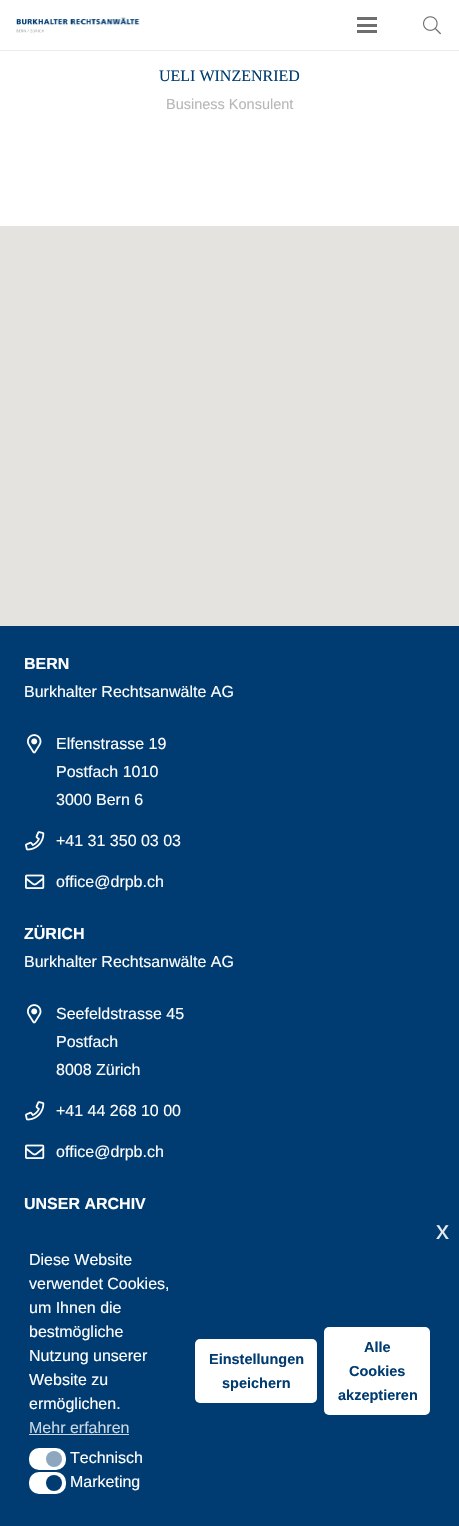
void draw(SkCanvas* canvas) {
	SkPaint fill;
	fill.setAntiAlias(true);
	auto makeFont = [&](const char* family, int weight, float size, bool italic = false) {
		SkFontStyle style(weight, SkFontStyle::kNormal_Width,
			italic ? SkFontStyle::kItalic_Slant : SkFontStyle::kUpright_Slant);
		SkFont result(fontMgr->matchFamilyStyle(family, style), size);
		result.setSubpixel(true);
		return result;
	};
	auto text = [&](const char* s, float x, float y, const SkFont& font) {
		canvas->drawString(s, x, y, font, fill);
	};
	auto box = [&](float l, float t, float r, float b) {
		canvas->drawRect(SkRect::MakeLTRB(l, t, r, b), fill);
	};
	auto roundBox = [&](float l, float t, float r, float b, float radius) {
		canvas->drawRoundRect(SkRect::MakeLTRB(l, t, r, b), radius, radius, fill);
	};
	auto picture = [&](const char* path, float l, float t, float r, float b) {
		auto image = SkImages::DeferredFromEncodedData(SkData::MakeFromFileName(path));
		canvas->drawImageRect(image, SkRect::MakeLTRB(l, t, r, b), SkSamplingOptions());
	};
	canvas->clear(0xFFFFFFFF);
	fill.setColor(0xFFEBEBEB);
	box(0, 50, 459, 51);
	picture("image0.png", 16, 17, 140, 33);
	fill.setColor(0xFF6E6E6E);
	box(357, 24, 377, 27);
	box(357, 17, 377, 20);
	box(357, 30, 377, 33);
	picture("image1.png", 423, 16, 441, 35);
	fill.setColor(0xFFE5E3DF);
	box(0, 226, 459, 626);
	fill.setColor(0xFF003C71);
	box(0, 626, 459, 1526);
	picture("image2.png", 27, 734, 42, 754);
	picture("image3.png", 25, 831, 45, 851);
	picture("image4.png", 25, 874, 45, 889);
	picture("image2.png", 27, 1004, 42, 1024);
	picture("image3.png", 25, 1101, 45, 1121);
	picture("image4.png", 25, 1144, 45, 1159);
	fill.setColor(0xFFCCD8E3);
	box(29, 1434, 129, 1435);
	fill.setColor(0xFFFFFFFF);
	roundBox(29, 1448, 66, 1470, 10);
	fill.setColor(0xFF8CA7BF);
	canvas->drawCircle(54, 1459, 8, fill);
	fill.setColor(0xFFFFFFFF);
	roundBox(29, 1472, 66, 1494, 10);
	fill.setColor(0xFF003C71);
	canvas->drawCircle(54, 1483, 8, fill);
	fill.setColor(0xFFFFFFFF);
	roundBox(195, 1339, 317, 1403, 5);
	roundBox(324, 1327, 430, 1415, 5);
	auto font1 = makeFont("Liberation Serif", 400, 16);
	fill.setColor(0xFF003C71);
	text("UELI WINZENRIED", 159, 81, font1);
	auto font2 = makeFont("Liberation Sans", 400, 14.5f);
	fill.setColor(0xFFB7B7B7);
	text("Business Konsulent", 166, 109, font2);
	auto font3 = makeFont("Liberation Sans", 700, 16);
	fill.setColor(0xFFFFFFFF);
	text("BERN", 24, 669, font3);
	auto font4 = makeFont("Liberation Sans", 400, 16);
	text("Burkhalter Rechtsanwälte AG", 24, 697, font4);
	text("Elfenstrasse 19", 56, 749, font4);
	text("Postfach 1010", 56, 777, font4);
	text("3000 Bern 6", 56, 805, font4);
	text("+41 31 350 03 03", 56, 846, font4);
	text("office@drpb.ch", 56, 887, font4);
	text("ZÜRICH", 24, 939, font3);
	text("Burkhalter Rechtsanwälte AG", 24, 967, font4);
	text("Seefeldstrasse 45", 56, 1019, font4);
	text("Postfach", 56, 1047, font4);
	text("8008 Zürich", 56, 1075, font4);
	text("+41 44 268 10 00", 56, 1116, font4);
	text("office@drpb.ch", 56, 1157, font4);
	text("UNSER ARCHIV", 24, 1209, font3);
	auto font5 = makeFont("Liberation Sans", 400, 26);
	fill.setColor(0xFFE6ECF1);
	text("x", 436, 1239, font5);
	fill.setColor(0xFFFFFFFF);
	text("Diese Website", 29, 1265, font4);
	text("verwendet Cookies,", 29, 1289, font4);
	text("um Ihnen die", 29, 1313, font4);
	text("bestmögliche", 29, 1337, font4);
	text("Nutzung unserer", 29, 1361, font4);
	text("Website zu", 29, 1385, font4);
	text("ermöglichen.", 29, 1409, font4);
	fill.setColor(0xFFCCD8E3);
	text("Mehr erfahren", 29, 1433, font4);
	fill.setColor(0xFFFFFFFF);
	text("Technisch", 70, 1463, font4);
	text("Marketing", 70, 1487, font4);
	auto font6 = makeFont("Liberation Sans", 700, 14.5f);
	fill.setColor(0xFF003C71);
	text("Einstellungen", 209, 1364, font6);
	text("speichern", 222, 1388, font6);
	text("Alle", 364, 1352, font6);
	text("Cookies", 349, 1376, font6);
	text("akzeptieren", 338, 1400, font6);
}
